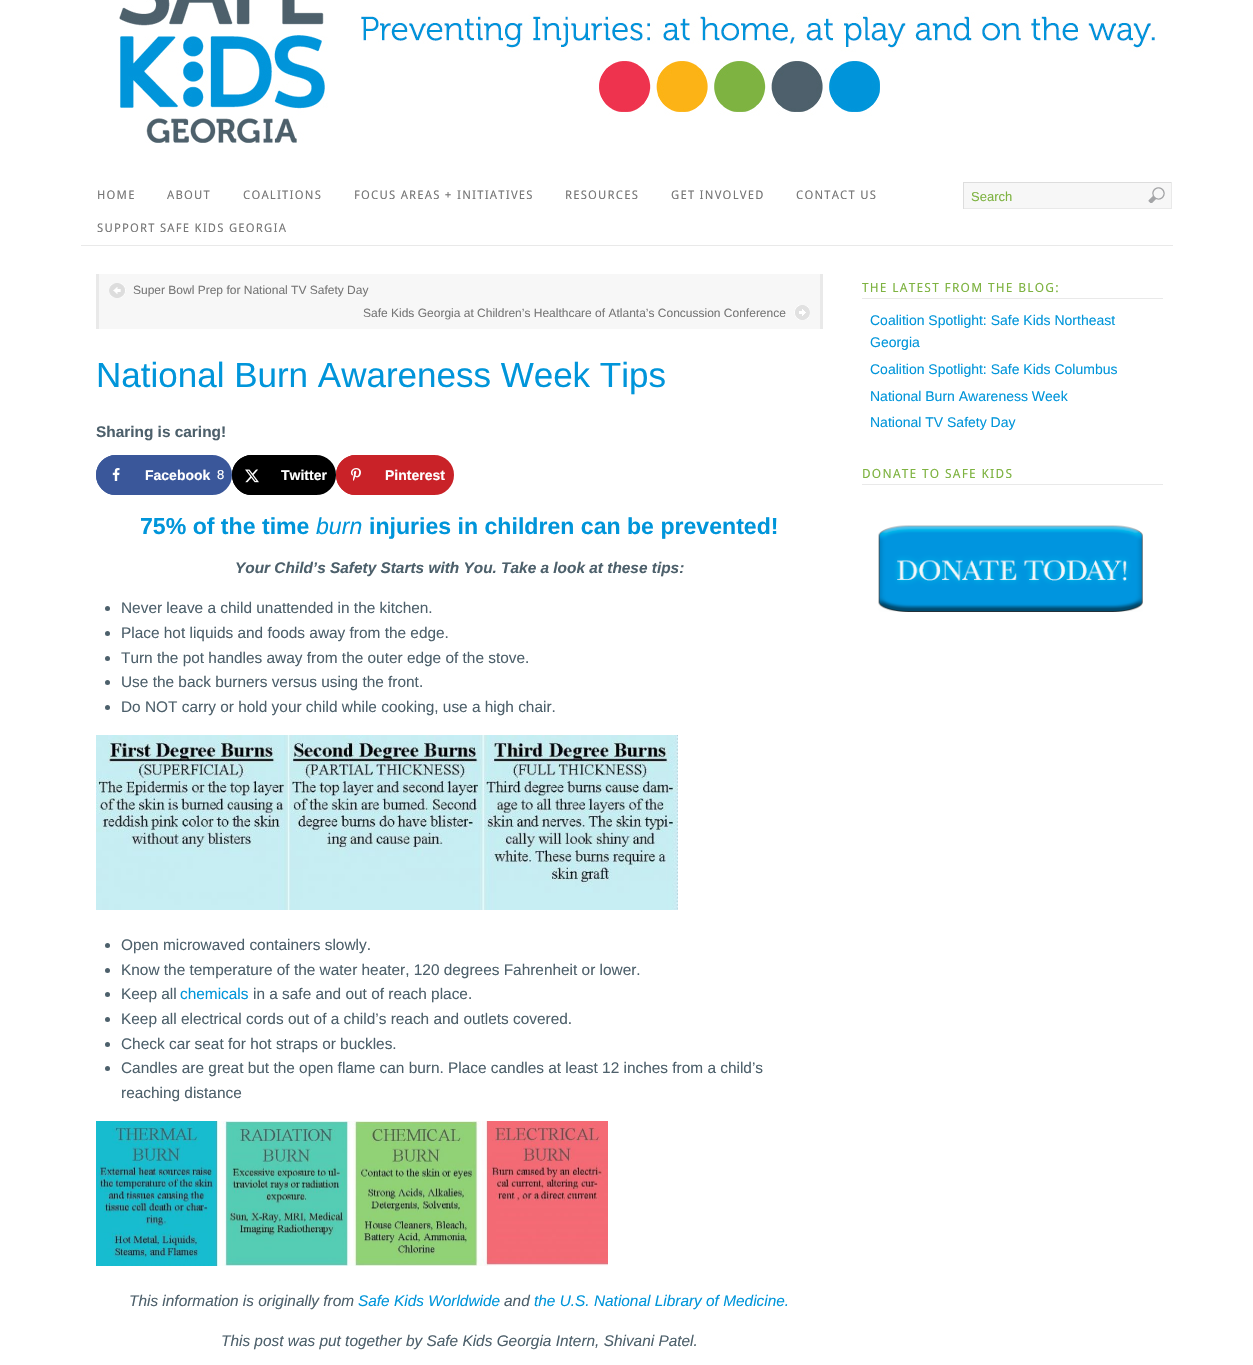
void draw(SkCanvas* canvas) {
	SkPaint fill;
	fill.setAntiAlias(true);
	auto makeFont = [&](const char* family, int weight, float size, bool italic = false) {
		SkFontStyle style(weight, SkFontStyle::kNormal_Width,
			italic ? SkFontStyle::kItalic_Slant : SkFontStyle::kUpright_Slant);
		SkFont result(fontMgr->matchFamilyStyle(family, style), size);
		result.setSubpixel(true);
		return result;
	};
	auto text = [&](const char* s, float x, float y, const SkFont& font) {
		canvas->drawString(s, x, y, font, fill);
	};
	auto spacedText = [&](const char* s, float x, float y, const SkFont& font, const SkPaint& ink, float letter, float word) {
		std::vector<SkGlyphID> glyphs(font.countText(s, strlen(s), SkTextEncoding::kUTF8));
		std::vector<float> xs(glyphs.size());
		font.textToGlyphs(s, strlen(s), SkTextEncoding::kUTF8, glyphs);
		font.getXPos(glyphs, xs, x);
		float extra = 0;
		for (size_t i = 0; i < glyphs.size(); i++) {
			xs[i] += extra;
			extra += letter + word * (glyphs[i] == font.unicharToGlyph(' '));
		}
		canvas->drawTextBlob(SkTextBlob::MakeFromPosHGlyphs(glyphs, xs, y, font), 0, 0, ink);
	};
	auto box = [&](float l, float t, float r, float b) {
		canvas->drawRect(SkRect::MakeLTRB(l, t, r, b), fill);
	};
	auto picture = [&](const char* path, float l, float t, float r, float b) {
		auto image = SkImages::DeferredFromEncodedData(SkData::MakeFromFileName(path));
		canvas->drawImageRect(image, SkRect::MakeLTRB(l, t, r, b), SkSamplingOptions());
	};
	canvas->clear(0xFFFFFFFF);
	picture("image0.png", 119, 0, 1155, 143);
	fill.setColor(0xFFE9E9E9);
	box(81, 245, 1173, 246);
	fill.setColor(0xFFF7F7F7);
	box(964, 183, 1171, 208);
	fill.setColor(0xFFDDDDDD);
	box(963, 182, 1172, 183);
	fill.setColor(0xFFE9E9E9);
	box(1171, 182, 1172, 209);
	box(963, 208, 1172, 209);
	fill.setColor(0xFFDDDDDD);
	box(963, 182, 964, 209);
	picture("image1.png", 1148, 187, 1165, 203);
	fill.setColor(0xFFF7F7F7);
	box(99, 274, 820, 329);
	fill.setColor(0xFFE9E9E9);
	box(820, 274, 823, 329);
	box(96, 274, 99, 329);
	picture("image2.png", 109, 283, 126, 298);
	picture("image3.png", 794, 305, 810, 320);
	fill.setColor(0xFF3A579A);
	canvas->drawRoundRect(SkRect::MakeLTRB(97, 456, 231, 494), 19, 19, fill);
	fill.setStyle(SkPaint::kStroke_Style);
	fill.setStrokeWidth(2);
	canvas->drawRoundRect(SkRect::MakeLTRB(97, 456, 231, 494), 19, 19, fill);
	fill.setStyle(SkPaint::kFill_Style);
	canvas->drawCircle(116, 475, 19, fill);
	fill.setStyle(SkPaint::kStroke_Style);
	canvas->drawCircle(116, 475, 19, fill);
	picture("image4.png", 112, 468, 120, 481);
	fill.setStyle(SkPaint::kFill_Style);
	fill.setColor(0xFF000000);
	canvas->drawRoundRect(SkRect::MakeLTRB(233, 456, 335, 494), 19, 19, fill);
	fill.setStyle(SkPaint::kStroke_Style);
	canvas->drawRoundRect(SkRect::MakeLTRB(233, 456, 335, 494), 19, 19, fill);
	fill.setStyle(SkPaint::kFill_Style);
	canvas->drawCircle(252, 475, 19, fill);
	fill.setStyle(SkPaint::kStroke_Style);
	canvas->drawCircle(252, 475, 19, fill);
	picture("image5.png", 245, 469, 259, 483);
	fill.setStyle(SkPaint::kFill_Style);
	fill.setColor(0xFFC92228);
	canvas->drawRoundRect(SkRect::MakeLTRB(337, 456, 453, 494), 19, 19, fill);
	fill.setStyle(SkPaint::kStroke_Style);
	canvas->drawRoundRect(SkRect::MakeLTRB(337, 456, 453, 494), 19, 19, fill);
	fill.setStyle(SkPaint::kFill_Style);
	canvas->drawCircle(356, 475, 19, fill);
	fill.setStyle(SkPaint::kStroke_Style);
	canvas->drawCircle(356, 475, 19, fill);
	picture("image6.png", 351, 468, 361, 481);
	fill.setStyle(SkPaint::kFill_Style);
	fill.setColor(0xFF4D606B);
	canvas->drawCircle(107.5f, 608.5f, 2.5f, fill);
	canvas->drawCircle(107.5f, 633.5f, 2.5f, fill);
	canvas->drawCircle(107.5f, 658.5f, 2.5f, fill);
	canvas->drawCircle(107.5f, 682.5f, 2.5f, fill);
	canvas->drawCircle(107.5f, 707.5f, 2.5f, fill);
	picture("image7.png", 96, 735, 678, 910);
	canvas->drawCircle(107.5f, 945.5f, 2.5f, fill);
	canvas->drawCircle(107.5f, 970.5f, 2.5f, fill);
	canvas->drawCircle(107.5f, 994.5f, 2.5f, fill);
	canvas->drawCircle(107.5f, 1019.5f, 2.5f, fill);
	canvas->drawCircle(107.5f, 1044.5f, 2.5f, fill);
	canvas->drawCircle(107.5f, 1068.5f, 2.5f, fill);
	picture("image8.png", 96, 1121, 608, 1266);
	fill.setColor(0xFFE9E9E9);
	box(862, 298, 1163, 299);
	box(862, 484, 1163, 485);
	picture("image9.png", 878, 525, 1143, 612);
	auto font1 = makeFont("Droid Sans", 400, 11.9f);
	fill.setColor(0xFF777777);
	spacedText("HOME", 97, 199, font1, fill, 1.2f, 0);
	spacedText("ABOUT", 167, 199, font1, fill, 1.2f, 0);
	spacedText("COALITIONS", 243, 199, font1, fill, 1.2f, 0);
	spacedText("FOCUS AREAS + INITIATIVES", 354, 199, font1, fill, 1.2f, 0);
	spacedText("RESOURCES", 565, 199, font1, fill, 1.2f, 0);
	spacedText("GET INVOLVED", 671, 199, font1, fill, 1.2f, 0);
	spacedText("CONTACT US", 796, 199, font1, fill, 1.2f, 0);
	spacedText("SUPPORT SAFE KIDS GEORGIA", 97, 232, font1, fill, 1.2f, 0);
	auto font2 = makeFont("Liberation Sans", 400, 13);
	fill.setColor(0xFF7EB341);
	text("Search", 971, 201, font2);
	auto font3 = makeFont("Liberation Sans", 400, 12);
	fill.setColor(0xFF777777);
	text("Super Bowl Prep for National TV Safety Day", 133, 294, font3);
	text("Safe Kids Georgia at Children’s Healthcare of Atlanta’s Concussion Conference", 363, 317, font3);
	auto font4 = makeFont("Liberation Sans", 400, 35);
	fill.setColor(0xFF0095DA);
	text("National Burn Awareness Week Tips", 96, 387, font4);
	auto font5 = makeFont("Liberation Sans", 700, 15.4f);
	fill.setColor(0xFF4D606B);
	text("Sharing is caring!", 96, 437, font5);
	auto font6 = makeFont("Liberation Sans", 700, 14);
	fill.setColor(0xFFFFFFFF);
	text("Facebook", 145, 480, font6);
	text("8", 217, 479, font2);
	text("Twitter", 281, 480, font6);
	text("Pinterest", 385, 480, font6);
	auto font7 = makeFont("Liberation Sans", 700, 23.1f);
	fill.setColor(0xFF0095DA);
	text("75% of the time", 140, 534, font7);
	auto font8 = makeFont("Liberation Sans", 400, 23.1f, true);
	text("burn", 316, 534, font8);
	text("injuries in children can be prevented!", 369, 534, font7);
	auto font9 = makeFont("Liberation Sans", 700, 15.4f, true);
	fill.setColor(0xFF4D606B);
	text("Your Child’s Safety Starts with You. Take a look at these tips:", 235, 573, font9);
	auto font10 = makeFont("Liberation Sans", 400, 15.4f);
	text("Never leave a child unattended in the kitchen.", 121, 613, font10);
	text("Place hot liquids and foods away from the edge.", 121, 638, font10);
	text("Turn the pot handles away from the outer edge of the stove.", 121, 663, font10);
	text("Use the back burners versus using the front.", 121, 687, font10);
	text("Do NOT carry or hold your child while cooking, use a high chair.", 121, 712, font10);
	text("Open microwaved containers slowly.", 121, 950, font10);
	text("Know the temperature of the water heater, 120 degrees Fahrenheit or lower.", 121, 975, font10);
	text("Keep all", 121, 999, font10);
	fill.setColor(0xFF0095DA);
	text("chemicals", 180, 999, font10);
	fill.setColor(0xFF4D606B);
	text("in a safe and out of reach place.", 253, 999, font10);
	text("Keep all electrical cords out of a child’s reach and outlets covered.", 121, 1024, font10);
	text("Check car seat for hot straps or buckles.", 121, 1049, font10);
	text("Candles are great but the open flame can burn. Place candles at least 12 inches from a child’s", 121, 1073, font10);
	text("reaching distance", 121, 1098, font10);
	auto font11 = makeFont("Liberation Sans", 400, 15.4f, true);
	text("This information is originally from", 129, 1306, font11);
	fill.setColor(0xFF0095DA);
	text("Safe Kids Worldwide", 358, 1306, font11);
	fill.setColor(0xFF4D606B);
	text("and", 504, 1306, font11);
	fill.setColor(0xFF0095DA);
	text("the U.S. National Library of Medicine.", 534, 1306, font11);
	fill.setColor(0xFF4D606B);
	text("This post was put together by Safe Kids Georgia Intern, Shivani Patel.", 221, 1346, font11);
	auto font12 = makeFont("Droid Sans", 400, 12.6f);
	fill.setColor(0xFF7EB341);
	spacedText("THE LATEST FROM THE BLOG:", 862, 292, font12, fill, 1.25f, 0);
	auto font13 = makeFont("Liberation Sans", 400, 14);
	fill.setColor(0xFF0095DA);
	text("Coalition Spotlight: Safe Kids Northeast", 870, 325, font13);
	text("Georgia", 870, 347, font13);
	text("Coalition Spotlight: Safe Kids Columbus", 870, 374, font13);
	text("National Burn Awareness Week", 870, 401, font13);
	text("National TV Safety Day", 870, 427, font13);
	fill.setColor(0xFF7EB341);
	spacedText("DONATE TO SAFE KIDS", 862, 478, font12, fill, 1.25f, 0);
}
